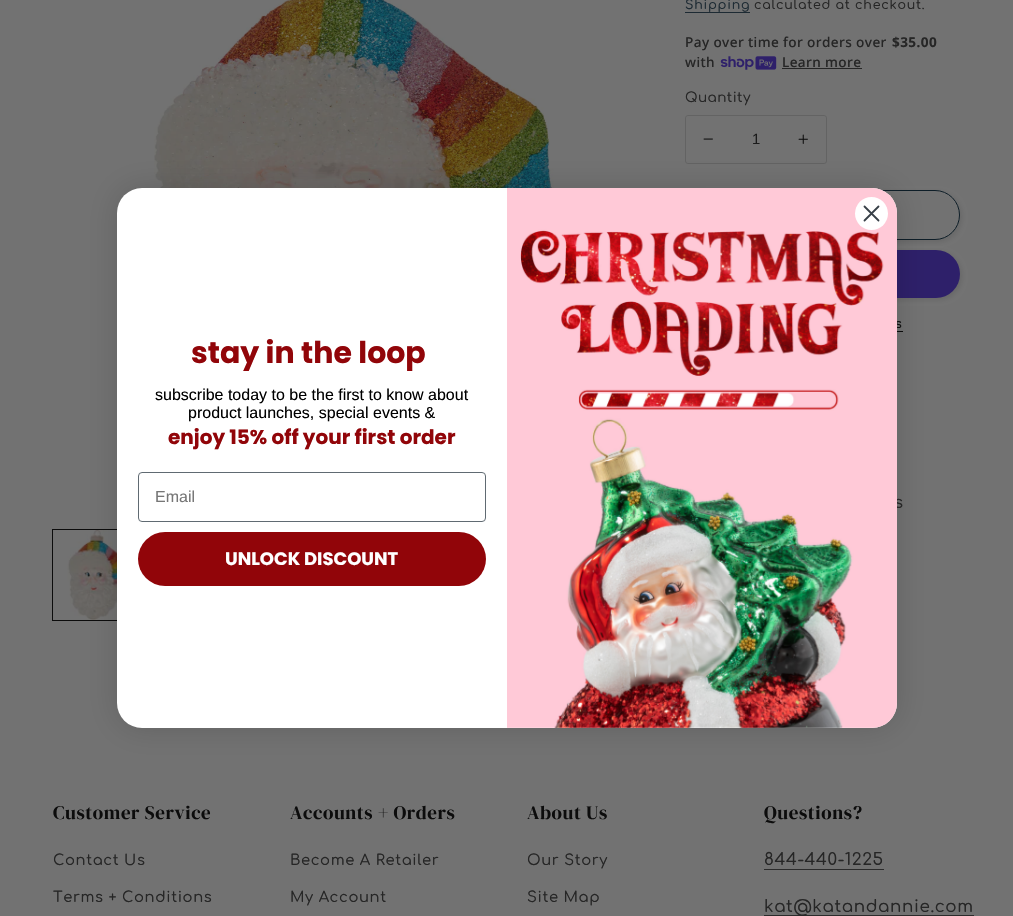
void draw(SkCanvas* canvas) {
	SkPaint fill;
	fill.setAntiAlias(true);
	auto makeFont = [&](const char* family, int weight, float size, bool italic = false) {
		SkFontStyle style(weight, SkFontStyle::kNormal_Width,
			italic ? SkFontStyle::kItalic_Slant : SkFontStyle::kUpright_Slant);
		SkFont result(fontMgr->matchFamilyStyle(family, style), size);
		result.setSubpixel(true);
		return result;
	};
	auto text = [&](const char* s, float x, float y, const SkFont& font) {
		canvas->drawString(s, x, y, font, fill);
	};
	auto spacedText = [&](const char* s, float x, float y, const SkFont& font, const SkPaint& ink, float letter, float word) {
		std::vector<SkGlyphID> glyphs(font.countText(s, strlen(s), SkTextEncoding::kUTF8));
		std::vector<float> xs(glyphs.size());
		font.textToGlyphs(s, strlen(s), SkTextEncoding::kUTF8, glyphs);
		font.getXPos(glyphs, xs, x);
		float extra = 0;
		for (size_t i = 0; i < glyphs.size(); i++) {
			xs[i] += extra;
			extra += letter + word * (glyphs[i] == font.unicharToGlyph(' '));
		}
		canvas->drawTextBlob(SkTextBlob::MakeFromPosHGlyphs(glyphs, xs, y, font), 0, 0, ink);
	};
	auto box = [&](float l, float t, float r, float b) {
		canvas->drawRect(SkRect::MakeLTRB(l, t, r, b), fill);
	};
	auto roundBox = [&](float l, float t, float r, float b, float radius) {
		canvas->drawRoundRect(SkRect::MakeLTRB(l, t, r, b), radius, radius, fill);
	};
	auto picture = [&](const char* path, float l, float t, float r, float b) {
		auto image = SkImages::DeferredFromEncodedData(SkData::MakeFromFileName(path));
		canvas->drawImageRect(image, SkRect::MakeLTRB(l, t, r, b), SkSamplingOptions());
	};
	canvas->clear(0xFF727272);
	picture("image1.png", 154, 0, 560, 188);
	fill.setStyle(SkPaint::kStroke_Style);
	fill.setStrokeWidth(1);
	fill.setColor(0xFF0C0C0C);
	canvas->drawRect(SkRect::MakeLTRB(52.5f, 529.5f, 142.5f, 620.5f), fill);
	picture("image2.png", 67, 530, 117, 620);
	picture("image4.png", 703, 138, 713, 140);
	picture("image5.png", 798, 134, 808, 144);
	fill.setColor(0xFF636363);
	canvas->drawRoundRect(SkRect::MakeLTRB(685.5f, 115.5f, 826.5f, 163.5f), 2.5f, 2.5f, fill);
	fill.setStyle(SkPaint::kFill_Style);
	fill.setColor(0x1A0C0C0C);
	fill.setMaskFilter(SkMaskFilter::MakeBlur(kNormal_SkBlurStyle, 2.5f));
	canvas->drawRoundRect(SkRect::MakeLTRB(687, 192, 962, 242), 25, 25, fill);
	fill.setMaskFilter(nullptr);
	fill.setColor(0xFF727272);
	canvas->drawRoundRect(SkRect::MakeLTRB(685.5f, 190.5f, 959.5f, 239.5f), 24.5f, 24.5f, fill);
	fill.setStyle(SkPaint::kStroke_Style);
	fill.setColor(0xFF0E1E28);
	canvas->drawRoundRect(SkRect::MakeLTRB(685.5f, 190.5f, 959.5f, 239.5f), 24.5f, 24.5f, fill);
	fill.setStyle(SkPaint::kFill_Style);
	fill.setColor(0x1A0C0C0C);
	fill.setMaskFilter(SkMaskFilter::MakeBlur(kNormal_SkBlurStyle, 2.5f));
	canvas->drawRoundRect(SkRect::MakeLTRB(687, 252, 962, 300), 24, 24, fill);
	fill.setMaskFilter(nullptr);
	fill.setColor(0xFF2E206A);
	roundBox(685, 250, 960, 298, 24);
	fill.setColor(0xFF0C0C0C);
	box(897, 331, 903, 332);
	fill.setColor(0x26000000);
	fill.setMaskFilter(SkMaskFilter::MakeBlur(kNormal_SkBlurStyle, 15));
	canvas->drawRoundRect(SkRect::MakeLTRB(117, 188, 897, 728), 25, 25, fill);
	fill.setMaskFilter(nullptr);
	fill.setColor(0xFF1D2A33);
	box(685, 12, 750, 13);
	picture("image3.png", 720, 56, 777, 70);
	fill.setColor(0xFF262626);
	box(782, 68, 862, 69);
	fill.setColor(0xFF2B2B2B);
	box(764, 869, 884, 870);
	box(764, 915, 974, 916);
	auto font1 = makeFont("Comfortaa", 500, 12.6f);
	fill.setColor(0xFF1D2A33);
	spacedText("Shipping", 685, 9, font1, fill, 0.75f, 0);
	fill.setColor(0xFF262626);
	spacedText("calculated at checkout.", 754, 9, font1, fill, 0.75f, 0);
	auto font2 = makeFont("Noto Sans", 500, 13.6f);
	spacedText("Pay over time for orders over", 685, 47, font2, fill, 0.4f, 0);
	auto font3 = makeFont("Noto Sans", 700, 13.6f);
	spacedText("$35.00", 892, 47, font3, fill, 0.4f, 0);
	spacedText("with", 685, 67, font2, fill, 0.4f, 0);
	spacedText("Learn more", 782, 67, font2, fill, 0.4f, 0);
	auto font4 = makeFont("Comfortaa", 500, 13.6f);
	spacedText("Quantity", 685, 102, font4, fill, 0.4f, 0);
	auto font5 = makeFont("Liberation Sans", 400, 14.75f);
	fill.setColor(0xFF1B1B1B);
	text("1", 752, 144, font5);
	fill.setColor(0xFF0C0C0C);
	spacedText("s", 895, 328, font1, fill, 1, 0);
	auto font6 = makeFont("Comfortaa", 500, 16.75f);
	fill.setColor(0xFF262626);
	spacedText("s", 894, 508, font6, fill, 0.6f, 0);
	fill.setColor(0xFFFFFFFF);
	roundBox(117, 188, 897, 728, 25);
	picture("image0.png", 507, 188, 897, 728);
	canvas->drawCircle(871.5f, 213.5f, 16.5f, fill);
	fill.setStyle(SkPaint::kStroke_Style);
	fill.setStrokeWidth(1.8f);
	fill.setStrokeCap(SkPaint::kRound_Cap);
	fill.setStrokeJoin(SkPaint::kRound_Join);
	fill.setColor(0xFF373F47);
	canvas->drawPath(SkPathBuilder().moveTo(864.5f, 206.5f).lineTo(878.5f, 220.5f).moveTo(864.5f, 220.5f).lineTo(878.5f, 206.5f).close().detach(), fill);
	fill.setStyle(SkPaint::kFill_Style);
	fill.setColor(0xFF910509);
	roundBox(138, 532, 486, 586, 27);
	auto font7 = makeFont("Poppins", 700, 18);
	fill.setColor(0xFFFFFFFF);
	text("UNLOCK DISCOUNT", 225, 565, font7);
	fill.setStyle(SkPaint::kStroke_Style);
	fill.setStrokeWidth(1);
	fill.setStrokeCap(SkPaint::kButt_Cap);
	fill.setStrokeJoin(SkPaint::kMiter_Join);
	fill.setColor(0xFF606A72);
	canvas->drawRoundRect(SkRect::MakeLTRB(138.5f, 472.5f, 485.5f, 521.5f), 3.5f, 3.5f, fill);
	auto font8 = makeFont("Liberation Sans", 400, 16);
	fill.setStyle(SkPaint::kFill_Style);
	fill.setColor(0xFF767676);
	text("Email", 155, 502, font8);
	auto font9 = makeFont("Poppins", 700, 20);
	fill.setColor(0xFF910509);
	text("enjoy 15% off your first order", 168, 444, font9);
	fill.setColor(0xFF000000);
	text("product launches, special events &", 188, 418, font8);
	text("subscribe today to be the first to know about", 155, 400, font8);
	auto font10 = makeFont("Poppins", 700, 30);
	fill.setColor(0xFF910509);
	text("stay in the loop", 191, 363, font10);
	auto font11 = makeFont("DM Serif Display", 400, 19);
	fill.setColor(0xFF0C0C0C);
	spacedText("Customer Service", 53, 819, font11, fill, 0.6f, 0);
	auto font12 = makeFont("Comfortaa", 500, 14.75f);
	fill.setColor(0xFF262626);
	spacedText("Contact Us", 53, 865, font12, fill, 0.6f, 0);
	spacedText("Terms + Conditions", 53, 902, font12, fill, 0.6f, 0);
	fill.setColor(0xFF0C0C0C);
	spacedText("Accounts + Orders", 290, 819, font11, fill, 0.6f, 0);
	fill.setColor(0xFF262626);
	spacedText("Become A Retailer", 290, 865, font12, fill, 0.6f, 0);
	spacedText("My Account", 290, 902, font12, fill, 0.6f, 0);
	fill.setColor(0xFF0C0C0C);
	spacedText("About Us", 527, 819, font11, fill, 0.6f, 0);
	fill.setColor(0xFF262626);
	spacedText("Our Story", 527, 865, font12, fill, 0.6f, 0);
	spacedText("Site Map", 527, 902, font12, fill, 0.6f, 0);
	fill.setColor(0xFF0C0C0C);
	spacedText("Questions?", 764, 819, font11, fill, 0.6f, 0);
	fill.setColor(0xFF262626);
	spacedText("844-440-1225", 764, 865, font6, fill, 0.6f, 0);
	spacedText("kat@katandannie.com", 764, 912, font6, fill, 0.6f, 0);
}
